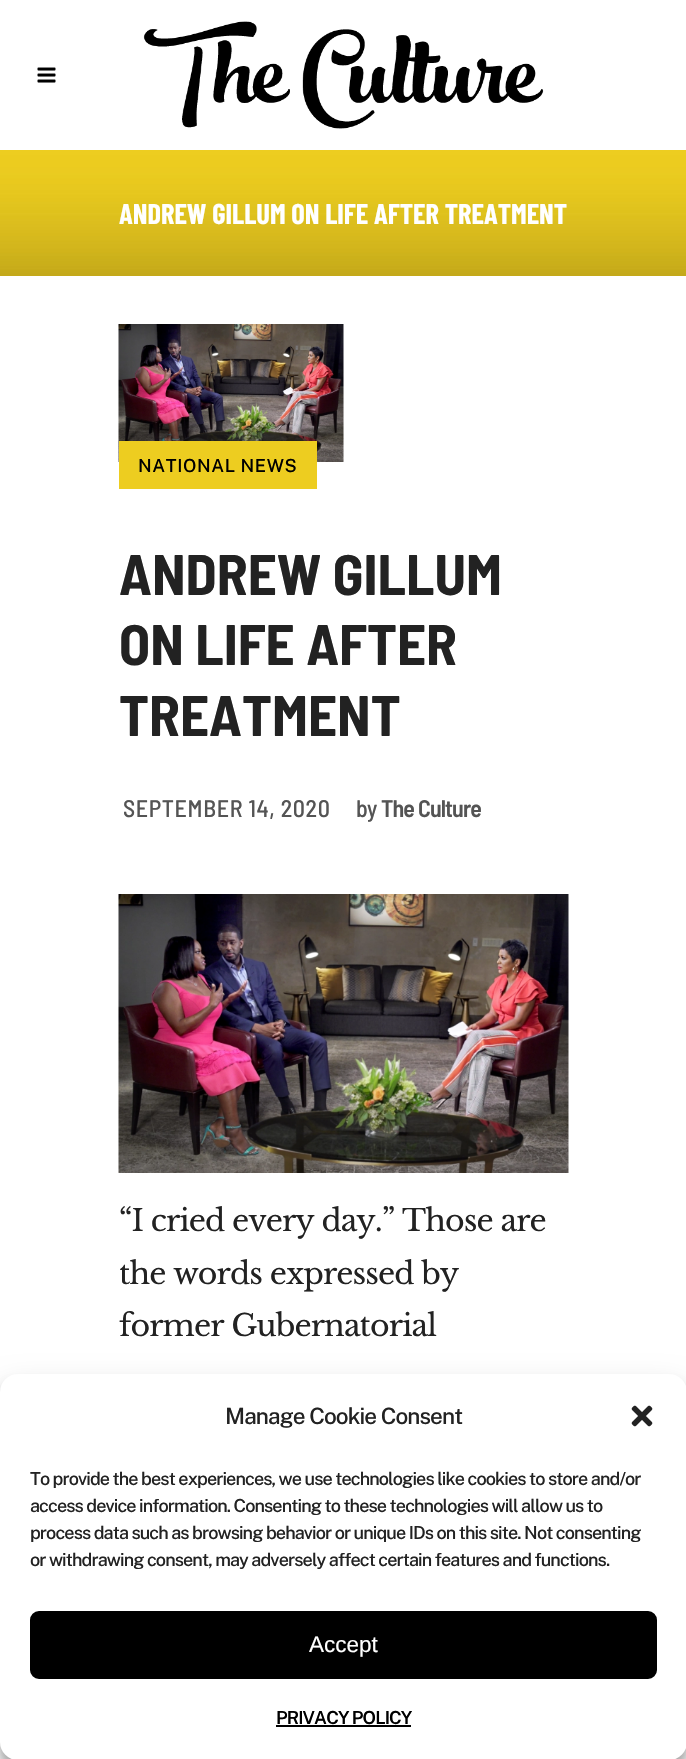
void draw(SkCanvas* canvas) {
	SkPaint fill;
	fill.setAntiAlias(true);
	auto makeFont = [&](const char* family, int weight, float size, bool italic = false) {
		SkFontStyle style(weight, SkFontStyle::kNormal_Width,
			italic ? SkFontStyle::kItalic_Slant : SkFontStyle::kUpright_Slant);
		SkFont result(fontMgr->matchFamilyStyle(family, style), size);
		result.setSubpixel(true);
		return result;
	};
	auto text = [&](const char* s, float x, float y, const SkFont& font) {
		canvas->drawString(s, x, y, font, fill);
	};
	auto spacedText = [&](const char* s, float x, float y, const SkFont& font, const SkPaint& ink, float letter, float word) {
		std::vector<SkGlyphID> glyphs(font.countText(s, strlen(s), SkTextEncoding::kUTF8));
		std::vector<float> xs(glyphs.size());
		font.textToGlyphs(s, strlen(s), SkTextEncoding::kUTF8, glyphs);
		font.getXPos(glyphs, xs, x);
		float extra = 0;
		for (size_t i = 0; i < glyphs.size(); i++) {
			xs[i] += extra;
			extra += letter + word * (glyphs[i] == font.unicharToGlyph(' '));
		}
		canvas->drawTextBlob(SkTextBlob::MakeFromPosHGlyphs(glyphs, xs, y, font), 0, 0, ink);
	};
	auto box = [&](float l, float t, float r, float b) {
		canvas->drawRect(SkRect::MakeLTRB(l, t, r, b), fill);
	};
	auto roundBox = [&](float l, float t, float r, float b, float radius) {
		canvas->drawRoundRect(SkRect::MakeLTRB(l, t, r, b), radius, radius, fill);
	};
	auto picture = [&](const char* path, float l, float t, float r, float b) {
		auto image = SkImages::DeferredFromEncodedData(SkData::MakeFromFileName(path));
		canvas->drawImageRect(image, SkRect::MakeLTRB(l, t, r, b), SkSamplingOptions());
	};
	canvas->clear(0xFFFFFFFF);
	picture("image0.png", 37, 67, 56, 83);
	picture("image1.png", 143, 21, 544, 129);
	picture("image2.png", 0, 150, 686, 276);
	picture("image3.png", 118, 324, 344, 462);
	fill.setColor(0xFFEDCD20);
	box(119, 441, 317, 489);
	picture("image4.png", 118, 894, 569, 1173);
	fill.setColor(0x3B000000);
	fill.setMaskFilter(SkMaskFilter::MakeBlur(kNormal_SkBlurStyle, 4.5f));
	canvas->drawRoundRect(SkRect::MakeLTRB(0, 1383, 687, 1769), 18, 18, fill);
	fill.setMaskFilter(nullptr);
	fill.setColor(0x30000000);
	fill.setMaskFilter(SkMaskFilter::MakeBlur(kNormal_SkBlurStyle, 15));
	canvas->drawRoundRect(SkRect::MakeLTRB(0, 1389, 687, 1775), 18, 18, fill);
	fill.setMaskFilter(nullptr);
	fill.setColor(0xFFFFFFFF);
	roundBox(0, 1374, 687, 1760, 18);
	picture("image5.png", 631, 1405, 653, 1427);
	fill.setColor(0xFF000000);
	canvas->drawRoundRect(SkRect::MakeLTRB(31, 1612, 656, 1678), 8, 8, fill);
	fill.setStyle(SkPaint::kStroke_Style);
	fill.setStrokeWidth(2);
	canvas->drawRoundRect(SkRect::MakeLTRB(31, 1612, 656, 1678), 8, 8, fill);
	fill.setStyle(SkPaint::kFill_Style);
	box(276, 1725, 411, 1727);
	auto font1 = makeFont("Barlow Condensed", 700, 28.5f);
	fill.setColor(0xFFFFFFFF);
	text("ANDREW GILLUM ON LIFE AFTER TREATMENT", 119, 224, font1);
	auto font2 = makeFont("Public Sans", 500, 18);
	fill.setColor(0xFF000000);
	spacedText("NATIONAL NEWS", 138, 472, font2, fill, 0.6f, 0);
	auto font3 = makeFont("Barlow Semi Condensed", 700, 57);
	fill.setColor(0xFF222222);
	text("ANDREW GILLUM", 119, 595, font3);
	text("ON LIFE AFTER", 119, 665, font3);
	text("TREATMENT", 119, 736, font3);
	auto font4 = makeFont("Barlow Semi Condensed", 500, 24);
	fill.setColor(0xFF545454);
	spacedText("SEPTEMBER 14, 2020", 123, 817, font4, fill, 0.6f, 0);
	spacedText("by", 356, 817, font4, fill, -0.9f, 0);
	auto font5 = makeFont("Barlow Semi Condensed", 600, 24);
	spacedText("The Culture", 381, 817, font5, fill, -0.9f, 0);
	auto font6 = makeFont("Libre Baskerville", 400, 30);
	fill.setColor(0xFF222222);
	spacedText("“I cried every day.” Those are", 119, 1231, font6, fill, -0.9f, 0);
	spacedText("the words expressed by", 119, 1284, font6, fill, -0.9f, 0);
	spacedText("former Gubernatorial", 119, 1336, font6, fill, -0.9f, 0);
	auto font7 = makeFont("Public Sans", 500, 22.5f);
	spacedText("Manage Cookie Consent", 225, 1424, font7, fill, -0.9f, 0);
	spacedText("To provide the best experiences, we use technologies like cookies to store and/or", 30, 1485, font2, fill, -0.9f, 0);
	spacedText("access device information. Consenting to these technologies will allow us to", 30, 1512, font2, fill, -0.9f, 0);
	spacedText("process data such as browsing behavior or unique IDs on this site. Not consenting", 30, 1539, font2, fill, -0.9f, 0);
	spacedText("or withdrawing consent, may adversely affect certain features and functions.", 30, 1566, font2, fill, -0.9f, 0);
	auto font8 = makeFont("Liberation Sans", 400, 22.5f);
	fill.setColor(0xFFFFFFFF);
	text("Accept", 309, 1652, font8);
	auto font9 = makeFont("Public Sans", 600, 18);
	fill.setColor(0xFF000000);
	spacedText("PRIVACY POLICY", 276, 1724, font9, fill, -0.9f, 0);
}
